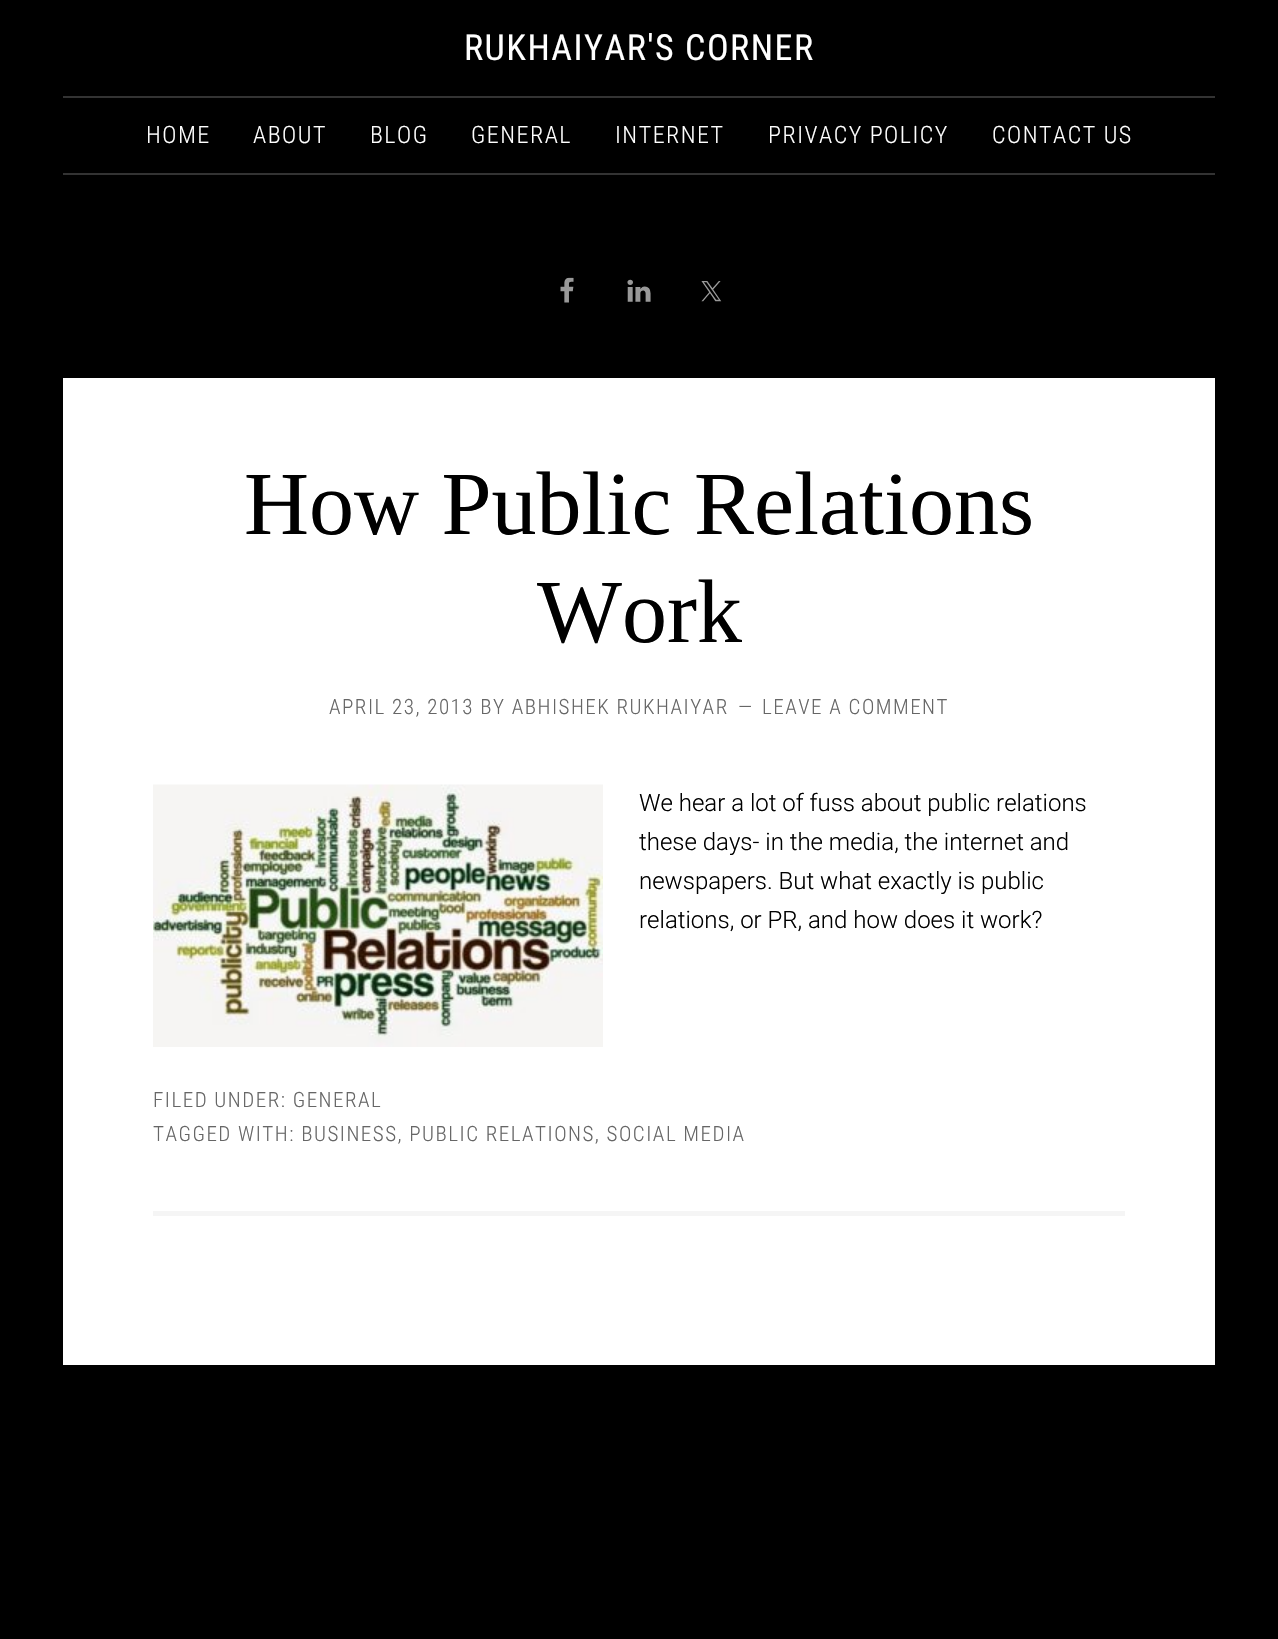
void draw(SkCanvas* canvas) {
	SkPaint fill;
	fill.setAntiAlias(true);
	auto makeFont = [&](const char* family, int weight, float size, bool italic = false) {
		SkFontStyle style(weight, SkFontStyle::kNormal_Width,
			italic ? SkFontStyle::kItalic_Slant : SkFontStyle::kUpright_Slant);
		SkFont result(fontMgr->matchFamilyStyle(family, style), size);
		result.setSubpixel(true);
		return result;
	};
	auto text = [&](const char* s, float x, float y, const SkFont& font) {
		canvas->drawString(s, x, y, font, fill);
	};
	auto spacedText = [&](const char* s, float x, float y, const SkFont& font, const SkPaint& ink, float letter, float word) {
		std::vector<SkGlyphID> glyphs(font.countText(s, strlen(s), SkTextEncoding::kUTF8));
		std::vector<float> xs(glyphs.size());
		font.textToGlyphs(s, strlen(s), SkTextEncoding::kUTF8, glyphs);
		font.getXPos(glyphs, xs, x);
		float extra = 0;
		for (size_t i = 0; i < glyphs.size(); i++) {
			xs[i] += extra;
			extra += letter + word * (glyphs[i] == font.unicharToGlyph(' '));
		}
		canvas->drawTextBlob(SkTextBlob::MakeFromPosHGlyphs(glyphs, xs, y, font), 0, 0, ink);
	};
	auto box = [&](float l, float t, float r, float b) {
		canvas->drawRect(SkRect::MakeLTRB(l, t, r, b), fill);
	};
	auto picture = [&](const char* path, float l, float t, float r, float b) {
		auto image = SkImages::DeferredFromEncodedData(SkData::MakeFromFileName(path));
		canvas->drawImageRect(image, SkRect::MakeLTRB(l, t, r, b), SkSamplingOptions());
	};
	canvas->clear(0xFF000000);
	fill.setColor(0xFF333333);
	box(63, 96, 1215, 98);
	box(63, 173, 1215, 175);
	picture("image0.png", 560, 277, 574, 303);
	picture("image1.png", 627, 279, 651, 302);
	picture("image2.png", 701, 281, 722, 302);
	fill.setColor(0xFFFFFFFF);
	box(63, 378, 1215, 1365);
	fill.setColor(0xFFF5F5F5);
	box(153, 1211, 1125, 1216);
	picture("image3.png", 153, 784, 603, 1047);
	auto font1 = makeFont("Roboto Condensed", 400, 36);
	fill.setColor(0xFFFFFFFF);
	spacedText("RUKHAIYAR'S CORNER", 464, 60, font1, fill, 1.5f, 0);
	auto font2 = makeFont("Roboto Condensed", 300, 24);
	spacedText("HOME", 146, 143, font2, fill, 1.5f, 0);
	spacedText("ABOUT", 253, 143, font2, fill, 1.5f, 0);
	spacedText("BLOG", 370, 143, font2, fill, 1.5f, 0);
	spacedText("GENERAL", 471, 143, font2, fill, 1.5f, 0);
	spacedText("INTERNET", 615, 143, font2, fill, 1.5f, 0);
	spacedText("PRIVACY POLICY", 768, 143, font2, fill, 1.5f, 0);
	spacedText("CONTACT US", 992, 143, font2, fill, 1.5f, 0);
	auto font3 = makeFont("Liberation Serif", 400, 90);
	fill.setColor(0xFF000000);
	text("How Public Relations", 244, 534, font3);
	text("Work", 537, 642, font3);
	auto font4 = makeFont("Roboto Condensed", 300, 21);
	fill.setColor(0xFF666666);
	spacedText("APRIL 23, 2013 BY ABHISHEK RUKHAIYAR", 329, 714, font4, fill, 1.5f, 0);
	spacedText("—", 738, 714, font4, fill, 1.5f, 0);
	spacedText("LEAVE A COMMENT", 762, 714, font4, fill, 1.5f, 0);
	auto font5 = makeFont("Roboto", 300, 24);
	fill.setColor(0xFF000000);
	text("We hear a lot of fuss about public relations", 639, 811, font5);
	text("these days- in the media, the internet and", 639, 850, font5);
	text("newspapers. But what exactly is public", 639, 889, font5);
	text("relations, or PR, and how does it work?", 639, 928, font5);
	fill.setColor(0xFF666666);
	spacedText("FILED UNDER: GENERAL", 153, 1107, font4, fill, 1.5f, 0);
	spacedText("TAGGED WITH: BUSINESS, PUBLIC RELATIONS, SOCIAL MEDIA", 153, 1141, font4, fill, 1.5f, 0);
}
